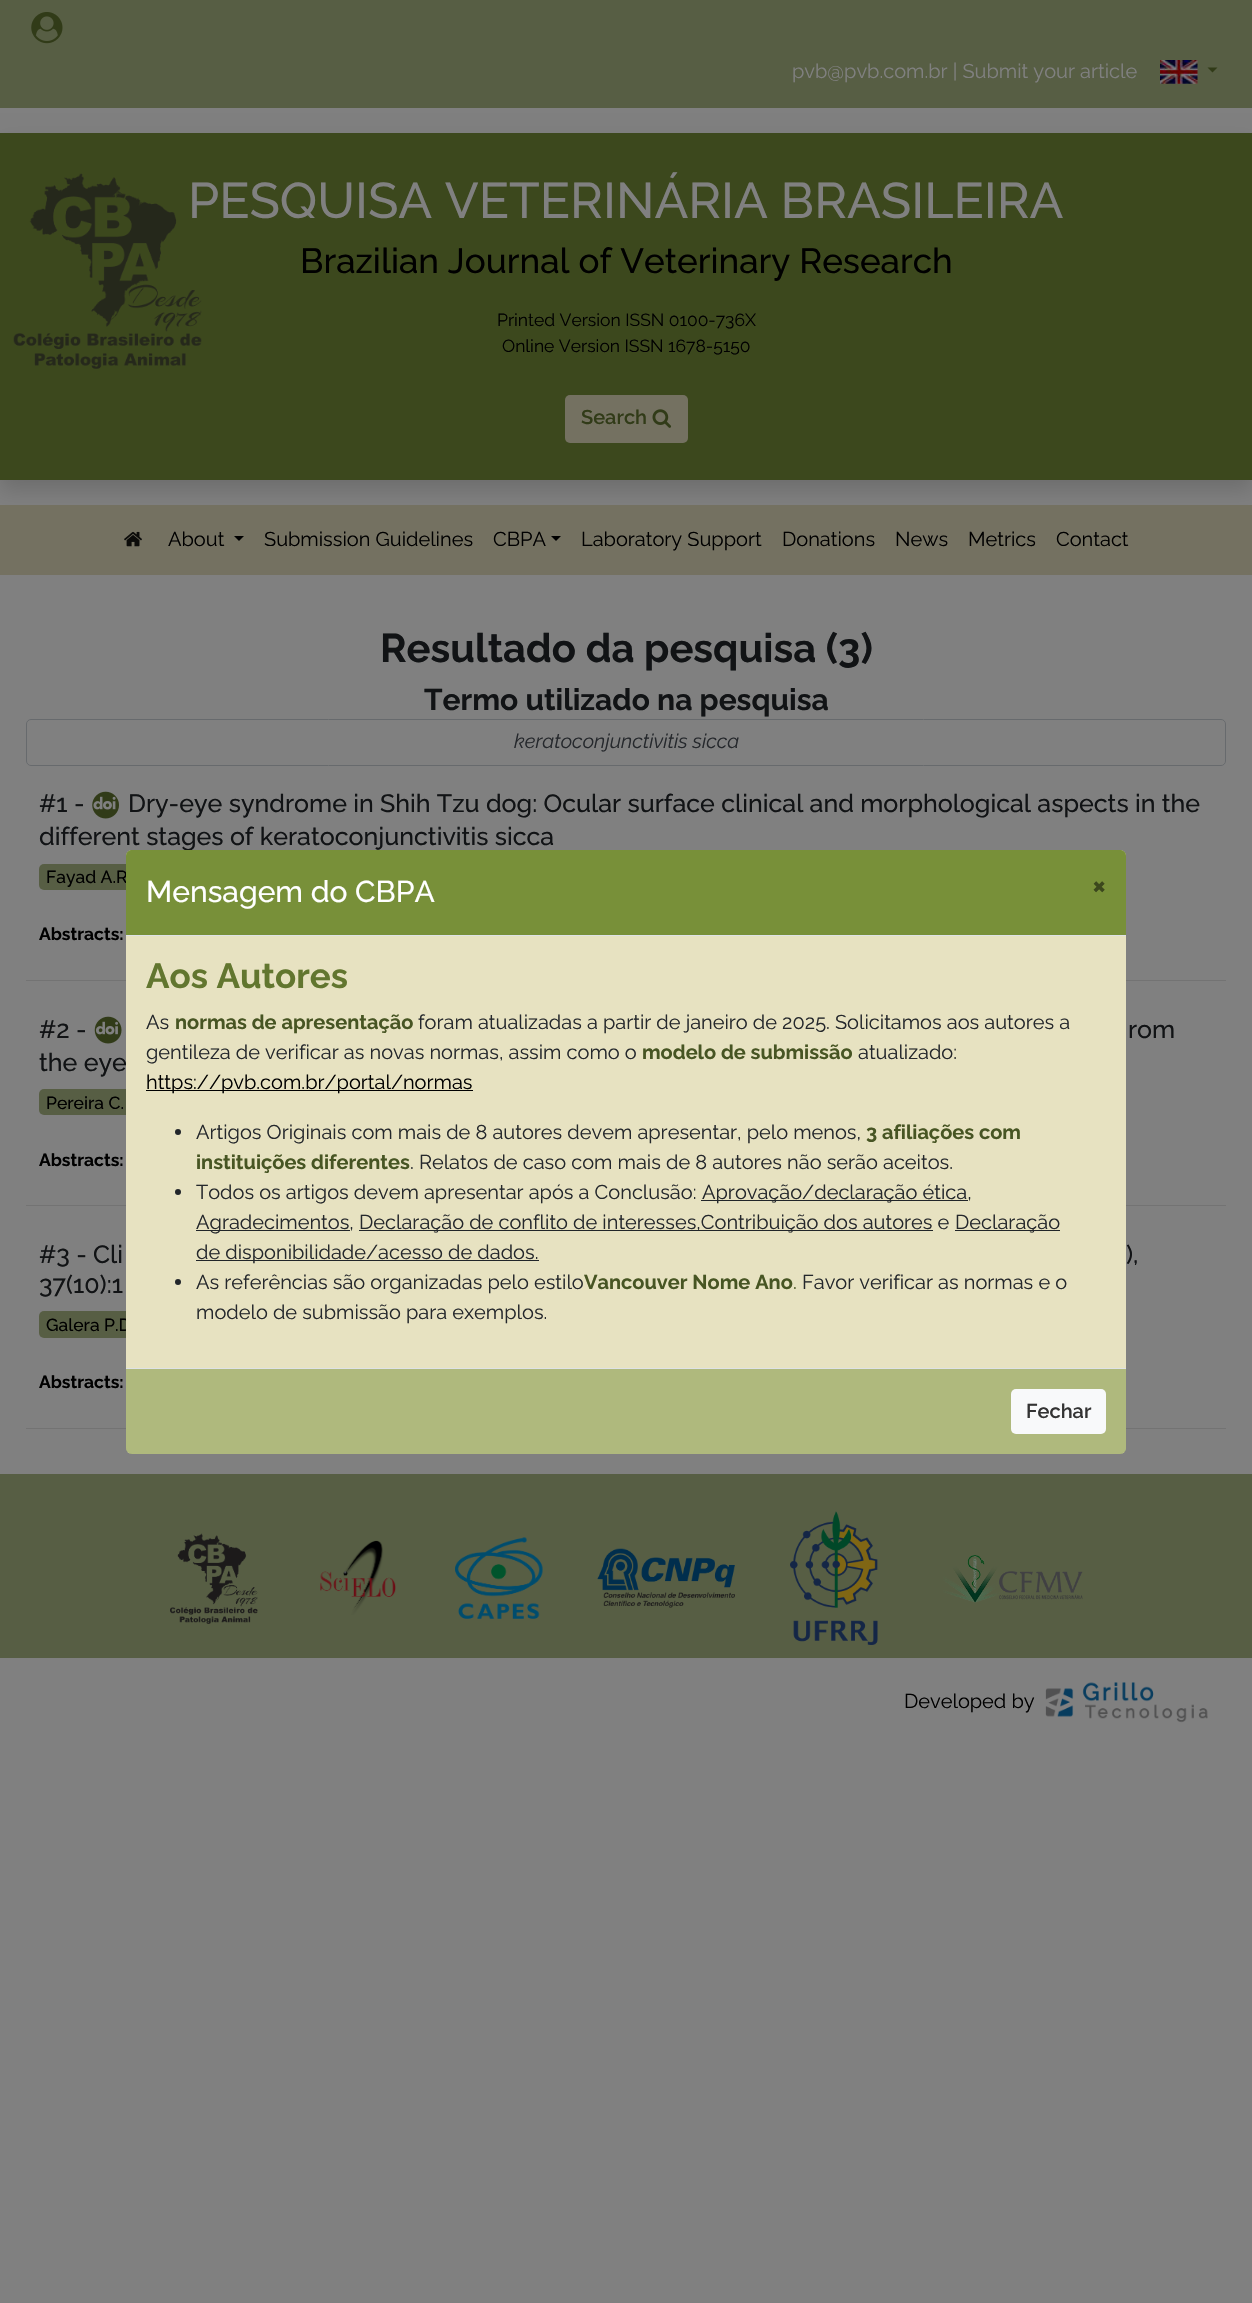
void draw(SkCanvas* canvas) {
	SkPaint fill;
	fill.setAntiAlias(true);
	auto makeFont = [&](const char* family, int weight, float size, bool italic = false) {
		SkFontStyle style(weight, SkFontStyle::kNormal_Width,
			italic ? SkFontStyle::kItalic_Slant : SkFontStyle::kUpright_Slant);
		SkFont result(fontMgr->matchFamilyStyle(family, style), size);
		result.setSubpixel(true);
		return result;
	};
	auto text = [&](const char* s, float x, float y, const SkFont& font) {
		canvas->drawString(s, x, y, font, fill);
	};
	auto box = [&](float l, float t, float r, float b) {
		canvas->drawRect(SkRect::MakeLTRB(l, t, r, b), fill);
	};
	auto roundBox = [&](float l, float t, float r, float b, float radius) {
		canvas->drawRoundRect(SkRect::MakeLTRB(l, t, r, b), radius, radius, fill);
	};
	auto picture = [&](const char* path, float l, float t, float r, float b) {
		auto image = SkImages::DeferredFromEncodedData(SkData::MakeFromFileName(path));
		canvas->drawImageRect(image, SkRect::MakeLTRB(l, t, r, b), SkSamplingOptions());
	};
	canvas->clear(0xFF808080);
	fill.setColor(0xFF575E44);
	box(0, 0, 1252, 108);
	picture("image0.png", 31, 12, 63, 44);
	picture("image1.png", 1160, 60, 1198, 84);
	fill.setColor(0xFF313B18);
	canvas->drawPath(SkPathBuilder().moveTo(1207.5f, 67.5f).lineTo(1217.5f, 67.5f).lineTo(1212.5f, 72.5f).close().detach(), fill);
	fill.setColor(0x26000000);
	fill.setMaskFilter(SkMaskFilter::MakeBlur(kNormal_SkBlurStyle, 10));
	canvas->drawRect(SkRect::MakeLTRB(0, 143, 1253, 490), fill);
	fill.setMaskFilter(nullptr);
	fill.setColor(0xFF3C481D);
	box(0, 133, 1252, 480);
	picture("image2.png", 13, 173, 202, 369);
	fill.setColor(0xFF747161);
	roundBox(565, 395, 688, 443, 5);
	picture("image3.png", 652, 409, 672, 428);
	box(0, 505, 1252, 575);
	picture("image4.png", 124, 531, 142, 547);
	fill.setColor(0xFF000000);
	canvas->drawPath(SkPathBuilder().moveTo(234, 536).lineTo(244, 536).lineTo(239, 541).close().detach(), fill);
	canvas->drawPath(SkPathBuilder().moveTo(551, 536).lineTo(561, 536).lineTo(556, 541).close().detach(), fill);
	fill.setStyle(SkPaint::kStroke_Style);
	fill.setStrokeWidth(1);
	fill.setColor(0xFF676A6D);
	canvas->drawRoundRect(SkRect::MakeLTRB(26.5f, 719.5f, 1225.5f, 765.5f), 4.5f, 4.5f, fill);
	picture("image5.png", 92, 791, 119, 819);
	fill.setStyle(SkPaint::kFill_Style);
	fill.setColor(0xFF575E44);
	roundBox(39, 864, 138, 890, 5);
	fill.setColor(0xFF737373);
	box(26, 980, 1226, 981);
	picture("image6.png", 94, 1016, 122, 1044);
	fill.setColor(0xFF575E44);
	roundBox(39, 1089, 161, 1115, 5);
	fill.setColor(0xFF737373);
	box(26, 1205, 1226, 1206);
	fill.setColor(0xFF575E44);
	roundBox(39, 1311, 141, 1338, 5);
	fill.setColor(0xFF737373);
	box(26, 1428, 1226, 1429);
	fill.setColor(0xFF575E44);
	box(0, 1474, 1252, 1658);
	picture("image7.png", 170, 1533, 258, 1624);
	picture("image8.png", 320, 1540, 396, 1615);
	picture("image9.png", 455, 1537, 543, 1619);
	picture("image10.png", 597, 1548, 735, 1608);
	picture("image11.png", 790, 1511, 878, 1645);
	picture("image12.png", 943, 1555, 1083, 1603);
	picture("image13.png", 1045, 1682, 1208, 1723);
	auto font1 = makeFont("Raleway", 400, 20);
	fill.setColor(0xFF808080);
	text("pvb@pvb.com.br | Submit your article", 792, 78, font1);
	auto font2 = makeFont("Raleway", 500, 50);
	text("PESQUISA VETERINÁRIA BRASILEIRA", 188, 218, font2);
	auto font3 = makeFont("Raleway", 500, 35);
	fill.setColor(0xFF000000);
	text("Brazilian Journal of Veterinary Research", 300, 273, font3);
	auto font4 = makeFont("Raleway", 400, 17.5f);
	text("Printed Version ISSN 0100-736X", 497, 326, font4);
	text("Online Version ISSN 1678-5150", 502, 352, font4);
	auto font5 = makeFont("Raleway", 600, 20);
	fill.setColor(0xFF313B18);
	text("Search", 581, 424, font5);
	fill.setColor(0xFF000000);
	text("About", 168, 546, font1);
	text("Submission Guidelines", 264, 546, font1);
	text("CBPA", 493, 546, font1);
	text("Laboratory Support", 581, 546, font1);
	text("Donations", 782, 546, font1);
	text("News", 895, 546, font1);
	text("Metrics", 968, 546, font1);
	text("Contact", 1056, 546, font1);
	auto font6 = makeFont("Raleway", 700, 40);
	fill.setColor(0xFF111315);
	text("Resultado da pesquisa (3)", 380, 662, font6);
	auto font7 = makeFont("Raleway", 700, 30);
	text("Termo utilizado na pesquisa", 424, 710, font7);
	auto font8 = makeFont("Raleway", 400, 20, true);
	fill.setColor(0xFF25282C);
	text("keratoconjunctivitis sicca", 514, 748, font8);
	auto font9 = makeFont("Raleway", 500, 25);
	fill.setColor(0xFF111315);
	text("#1 -", 39, 812, font9);
	text("Dry-eye syndrome in Shih Tzu dog: Ocular surface clinical and morphological aspects in the", 128, 812, font9);
	text("different stages of keratoconjunctivitis sicca", 39, 845, font9);
	auto font10 = makeFont("Raleway", 500, 17.5f);
	fill.setColor(0xFF000000);
	text("Fayad A.R", 46, 883, font10);
	auto font11 = makeFont("Raleway", 700, 17.5f);
	text("Abstracts:", 39, 940, font11);
	fill.setColor(0xFF111315);
	text("#2 -", 39, 1038, font9);
	text("rom", 1128, 1038, font9);
	text("the eye", 39, 1071, font9);
	fill.setColor(0xFF000000);
	text("Pereira C.", 46, 1109, font10);
	text("Abstracts:", 39, 1166, font11);
	fill.setColor(0xFF111315);
	text("#3 - Cli", 39, 1263, font9);
	text("),", 1126, 1263, font9);
	text("37(10):1", 39, 1293, font9);
	fill.setColor(0xFF000000);
	text("Galera P.D", 46, 1331, font10);
	text("Abstracts:", 39, 1388, font11);
	fill.setColor(0xFFE7E2C1);
	roundBox(126, 850, 1126, 1454, 6);
	fill.setColor(0xFF789039);
	canvas->drawPath(SkPathBuilder().moveTo(132, 850).lineTo(1120, 850).cubicTo(1123.5f, 850, 1126, 852.5f, 1126, 856).lineTo(1126, 936).lineTo(126, 936).lineTo(126, 856).cubicTo(126, 852.5f, 128.5f, 850, 132, 850).close().detach(), fill);
	fill.setColor(0xFFDEE2E6);
	box(126, 935, 1126, 936);
	auto font12 = makeFont("Raleway", 500, 30);
	fill.setColor(0xFFFFFFFF);
	text("Mensagem do CBPA", 146, 902, font12);
	fill.setColor(0xFF3C481D);
	text("×", 1092, 895, font7);
	auto font13 = makeFont("Raleway", 700, 35);
	fill.setColor(0xFF62762F);
	text("Aos Autores", 146, 988, font13);
	fill.setColor(0xFF25282C);
	text("As", 146, 1029, font1);
	auto font14 = makeFont("Raleway", 700, 20);
	fill.setColor(0xFF475523);
	text("normas de apresentação", 175, 1029, font14);
	fill.setColor(0xFF25282C);
	text("foram atualizadas a partir de janeiro de 2025. Solicitamos aos autores a", 418, 1029, font1);
	text("gentileza de verificar as novas normas, assim como o", 146, 1059, font1);
	fill.setColor(0xFF475523);
	text("modelo de submissão", 642, 1059, font14);
	fill.setColor(0xFF25282C);
	text("atualizado:", 858, 1059, font1);
	fill.setColor(0xFF000000);
	box(146, 1090, 473, 1091);
	text("https://pvb.com.br/portal/normas", 146, 1089, font1);
	fill.setColor(0xFF212529);
	canvas->drawCircle(178, 1132, 3, fill);
	fill.setColor(0xFF25282C);
	text("Artigos Originais com mais de 8 autores devem apresentar, pelo menos,", 196, 1139, font1);
	fill.setColor(0xFF475523);
	text("3 afiliações com", 866, 1139, font14);
	text("instituições diferentes", 196, 1169, font14);
	fill.setColor(0xFF25282C);
	text(". Relatos de caso com mais de 8 autores não serão aceitos.", 410, 1169, font1);
	fill.setColor(0xFF212529);
	canvas->drawCircle(178, 1192, 3, fill);
	fill.setColor(0xFF25282C);
	text("Todos os artigos devem apresentar após a Conclusão:", 196, 1199, font1);
	fill.setColor(0xFF212529);
	box(701, 1200, 968, 1201);
	fill.setColor(0xFF25282C);
	text("Aprovação/declaração ética,", 702, 1199, font1);
	fill.setColor(0xFF212529);
	box(196, 1230, 350, 1231);
	fill.setColor(0xFF25282C);
	text("Agradecimentos,", 196, 1229, font1);
	fill.setColor(0xFF212529);
	box(359, 1230, 933, 1231);
	fill.setColor(0xFF25282C);
	text("Declaração de conflito de interesses,Contribuição dos autores e", 359, 1229, font1);
	fill.setColor(0xFF212529);
	box(955, 1230, 1060, 1231);
	fill.setColor(0xFF25282C);
	text("Declaração", 955, 1229, font1);
	fill.setColor(0xFF212529);
	box(196, 1260, 539, 1261);
	fill.setColor(0xFF25282C);
	text("de disponibilidade/acesso de dados.", 196, 1259, font1);
	fill.setColor(0xFF212529);
	canvas->drawCircle(178, 1282, 3, fill);
	fill.setColor(0xFF25282C);
	text("As referências são organizadas pelo estilo", 196, 1289, font1);
	fill.setColor(0xFF475523);
	text("Vancouver Nome Ano", 584, 1289, font14);
	fill.setColor(0xFF25282C);
	text("Favor verificar as normas e o", 802, 1289, font1);
	fill.setColor(0xFF475523);
	text(".", 793, 1289, font1);
	fill.setColor(0xFF25282C);
	text("modelo de submissão para exemplos.", 196, 1319, font1);
	fill.setColor(0x80789039);
	canvas->drawPath(SkPathBuilder().moveTo(126, 1368).lineTo(1126, 1368).lineTo(1126, 1448).cubicTo(1126, 1451.5f, 1123.5f, 1454, 1120, 1454).lineTo(132, 1454).cubicTo(128.5f, 1454, 126, 1451.5f, 126, 1448).close().detach(), fill);
	fill.setColor(0xFFDEE2E6);
	box(126, 1368, 1126, 1369);
	fill.setColor(0xFFF8F9FA);
	roundBox(1011, 1389, 1106, 1434, 5);
	fill.setColor(0xFF333333);
	text("Fechar", 1026, 1418, font5);
	fill.setColor(0xFF000000);
	text("Developed by", 904, 1708, font1);
}
